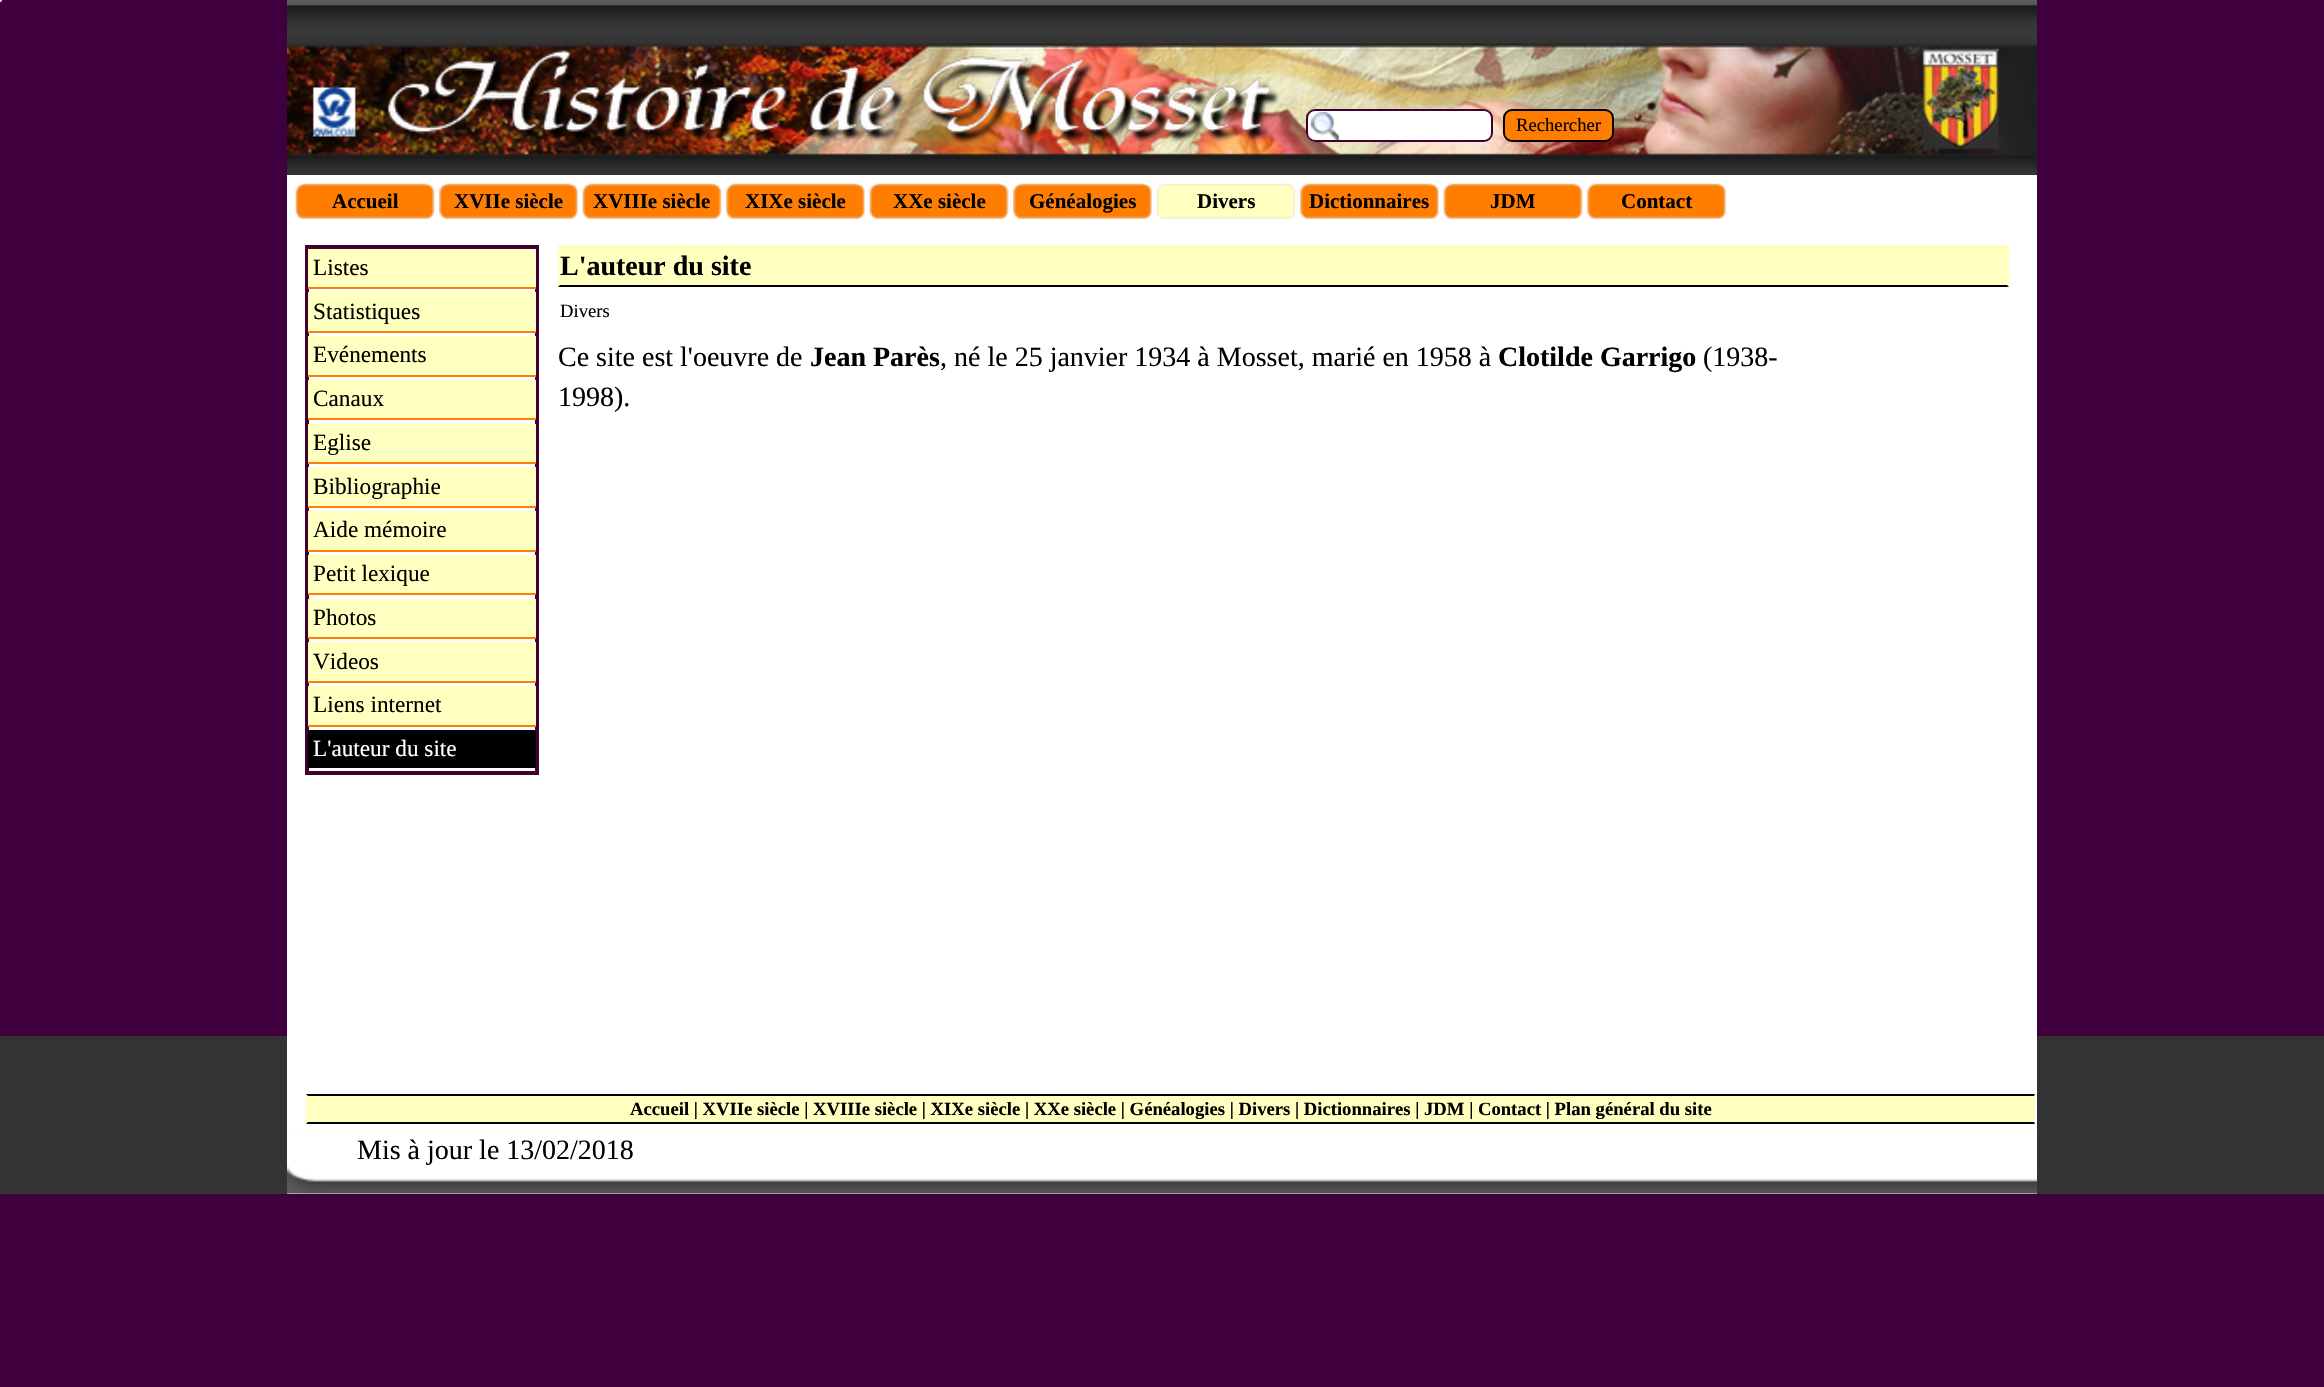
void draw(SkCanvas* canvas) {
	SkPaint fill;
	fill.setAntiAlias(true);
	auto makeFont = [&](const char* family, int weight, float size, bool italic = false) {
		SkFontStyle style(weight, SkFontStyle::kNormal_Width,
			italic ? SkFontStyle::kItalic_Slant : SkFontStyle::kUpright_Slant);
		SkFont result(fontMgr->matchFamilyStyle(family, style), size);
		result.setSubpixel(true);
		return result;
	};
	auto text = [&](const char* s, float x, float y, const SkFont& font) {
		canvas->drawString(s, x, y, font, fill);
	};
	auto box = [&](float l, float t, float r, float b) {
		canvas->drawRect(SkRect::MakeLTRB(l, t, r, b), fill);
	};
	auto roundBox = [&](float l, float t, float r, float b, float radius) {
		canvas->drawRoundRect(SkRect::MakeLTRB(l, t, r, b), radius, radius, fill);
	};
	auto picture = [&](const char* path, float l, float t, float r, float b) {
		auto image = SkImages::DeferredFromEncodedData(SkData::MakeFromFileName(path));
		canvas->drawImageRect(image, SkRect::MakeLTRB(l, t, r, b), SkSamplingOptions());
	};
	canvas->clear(0xFF400040);
	picture("image0.png", 0, 0, 2, 2);
	picture("image1.png", 287, 0, 2037, 175);
	fill.setColor(0xFFFFFFFF);
	roundBox(1306, 109, 1493, 142, 9);
	picture("image2.png", 1310, 112, 1339, 140);
	fill.setStyle(SkPaint::kStroke_Style);
	fill.setStrokeWidth(2);
	fill.setColor(0xFF400030);
	canvas->drawRoundRect(SkRect::MakeLTRB(1307, 110, 1492, 141), 8, 8, fill);
	fill.setStyle(SkPaint::kFill_Style);
	fill.setColor(0xFFFF7D00);
	canvas->drawRoundRect(SkRect::MakeLTRB(1504, 110, 1613, 141), 8, 8, fill);
	fill.setStyle(SkPaint::kStroke_Style);
	fill.setColor(0xFF000000);
	canvas->drawRoundRect(SkRect::MakeLTRB(1504, 110, 1613, 141), 8, 8, fill);
	fill.setStyle(SkPaint::kFill_Style);
	fill.setColor(0xFF333333);
	box(0, 1036, 2324, 1194);
	fill.setColor(0xFFFFFFFF);
	box(287, 175, 2037, 1132);
	picture("image3.png", 295, 183, 435, 219);
	picture("image4.png", 439, 183, 578, 219);
	picture("image3.png", 582, 183, 722, 219);
	picture("image5.png", 726, 183, 865, 219);
	picture("image3.png", 869, 183, 1009, 219);
	picture("image4.png", 1013, 183, 1152, 219);
	picture("image6.png", 1156, 183, 1296, 219);
	picture("image5.png", 1300, 183, 1439, 219);
	picture("image7.png", 1443, 183, 1583, 219);
	picture("image8.png", 1587, 183, 1726, 219);
	fill.setStyle(SkPaint::kStroke_Style);
	fill.setStrokeWidth(4);
	fill.setColor(0xFF400030);
	canvas->drawRect(SkRect::MakeLTRB(307, 247, 537, 773), fill);
	fill.setStyle(SkPaint::kFill_Style);
	fill.setColor(0xFFFFFFC0);
	box(308, 249, 536, 287);
	fill.setColor(0xFFFF8000);
	box(308, 287, 536, 289);
	fill.setColor(0xFFFFFFC0);
	box(308, 292, 536, 331);
	fill.setColor(0xFFFF8000);
	box(308, 331, 536, 333);
	fill.setColor(0xFFFFFFC0);
	box(308, 336, 536, 375);
	fill.setColor(0xFFFF8000);
	box(308, 375, 536, 377);
	fill.setColor(0xFFFFFFC0);
	box(308, 380, 536, 418);
	fill.setColor(0xFFFF8000);
	box(308, 418, 536, 420);
	fill.setColor(0xFFFFFFC0);
	box(308, 424, 536, 462);
	fill.setColor(0xFFFF8000);
	box(308, 462, 536, 464);
	fill.setColor(0xFFFFFFC0);
	box(308, 467, 536, 506);
	fill.setColor(0xFFFF8000);
	box(308, 506, 536, 508);
	fill.setColor(0xFFFFFFC0);
	box(308, 511, 536, 550);
	fill.setColor(0xFFFF8000);
	box(308, 550, 536, 552);
	fill.setColor(0xFFFFFFC0);
	box(308, 555, 536, 593);
	fill.setColor(0xFFFF8000);
	box(308, 593, 536, 595);
	fill.setColor(0xFFFFFFC0);
	box(308, 599, 536, 637);
	fill.setColor(0xFFFF8000);
	box(308, 637, 536, 639);
	fill.setColor(0xFFFFFFC0);
	box(308, 642, 536, 681);
	fill.setColor(0xFFFF8000);
	box(308, 681, 536, 683);
	fill.setColor(0xFFFFFFC0);
	box(308, 686, 536, 725);
	fill.setColor(0xFFFF8000);
	box(308, 725, 536, 727);
	fill.setColor(0xFF000000);
	box(308, 730, 536, 768);
	fill.setColor(0xFFFFFFC0);
	box(558, 245, 2009, 287);
	fill.setColor(0xFF000000);
	canvas->drawPath(SkPathBuilder().moveTo(2009, 287).lineTo(558, 287).lineTo(560, 285).lineTo(2007, 285).close().detach(), fill);
	fill.setColor(0xFFFFFFC0);
	box(306, 1094, 2035, 1124);
	fill.setColor(0xFF000000);
	canvas->drawPath(SkPathBuilder().moveTo(306, 1094).lineTo(2035, 1094).lineTo(2034, 1096).lineTo(308, 1096).close().detach(), fill);
	canvas->drawPath(SkPathBuilder().moveTo(2035, 1124).lineTo(306, 1124).lineTo(308, 1122).lineTo(2034, 1122).close().detach(), fill);
	fill.setColor(0xFFFFEFBF);
	box(287, 1132, 2037, 1194);
	picture("image9.png", 287, 1132, 2037, 1194);
	auto font1 = makeFont("Liberation Serif", 400, 18.67f);
	fill.setColor(0xFF000000);
	text("Rechercher", 1516, 131, font1);
	auto font2 = makeFont("Liberation Serif", 700, 21);
	text("Accueil", 332, 208, font2);
	text("XVIIe siècle", 454, 208, font2);
	text("XVIIIe siècle", 593, 208, font2);
	text("XIXe siècle", 745, 208, font2);
	text("XXe siècle", 893, 208, font2);
	text("Généalogies", 1029, 208, font2);
	text("Divers", 1197, 208, font2);
	text("Dictionnaires", 1309, 208, font2);
	text("JDM", 1490, 208, font2);
	text("Contact", 1621, 208, font2);
	auto font3 = makeFont("Liberation Serif", 400, 23.25f);
	text("Listes", 313, 275, font3);
	text("Statistiques", 313, 319, font3);
	text("Evénements", 313, 362, font3);
	text("Canaux", 313, 406, font3);
	text("Eglise", 313, 450, font3);
	text("Bibliographie", 313, 494, font3);
	text("Aide mémoire", 313, 537, font3);
	text("Petit lexique", 313, 581, font3);
	text("Photos", 313, 625, font3);
	text("Videos", 313, 669, font3);
	text("Liens internet", 313, 712, font3);
	fill.setColor(0xFFFFFFFF);
	text("L'auteur du site", 313, 756, font3);
	auto font4 = makeFont("Liberation Serif", 700, 28);
	fill.setColor(0xFF000000);
	text("L'auteur du site", 560, 275, font4);
	text("Divers", 560, 317, font1);
	auto font5 = makeFont("Liberation Serif", 400, 28);
	text("Ce site est l'oeuvre de", 558, 366, font5);
	text("Jean Parès", 810, 366, font4);
	text(", né le 25 janvier 1934 à Mosset, marié en 1958 à", 940, 366, font5);
	text("Clotilde Garrigo", 1498, 366, font4);
	text("(1938-", 1703, 366, font5);
	text("1998).", 558, 406, font5);
	auto font6 = makeFont("Liberation Serif", 700, 18.67f);
	text("Accueil | XVIIe siècle | XVIIIe siècle | XIXe siècle | XXe siècle | Généalogies | Divers | Dictionnaires | JDM | Contact | Plan général du site", 630, 1115, font6);
	text("Mis à jour le 13/02/2018", 357, 1159, font5);
}
